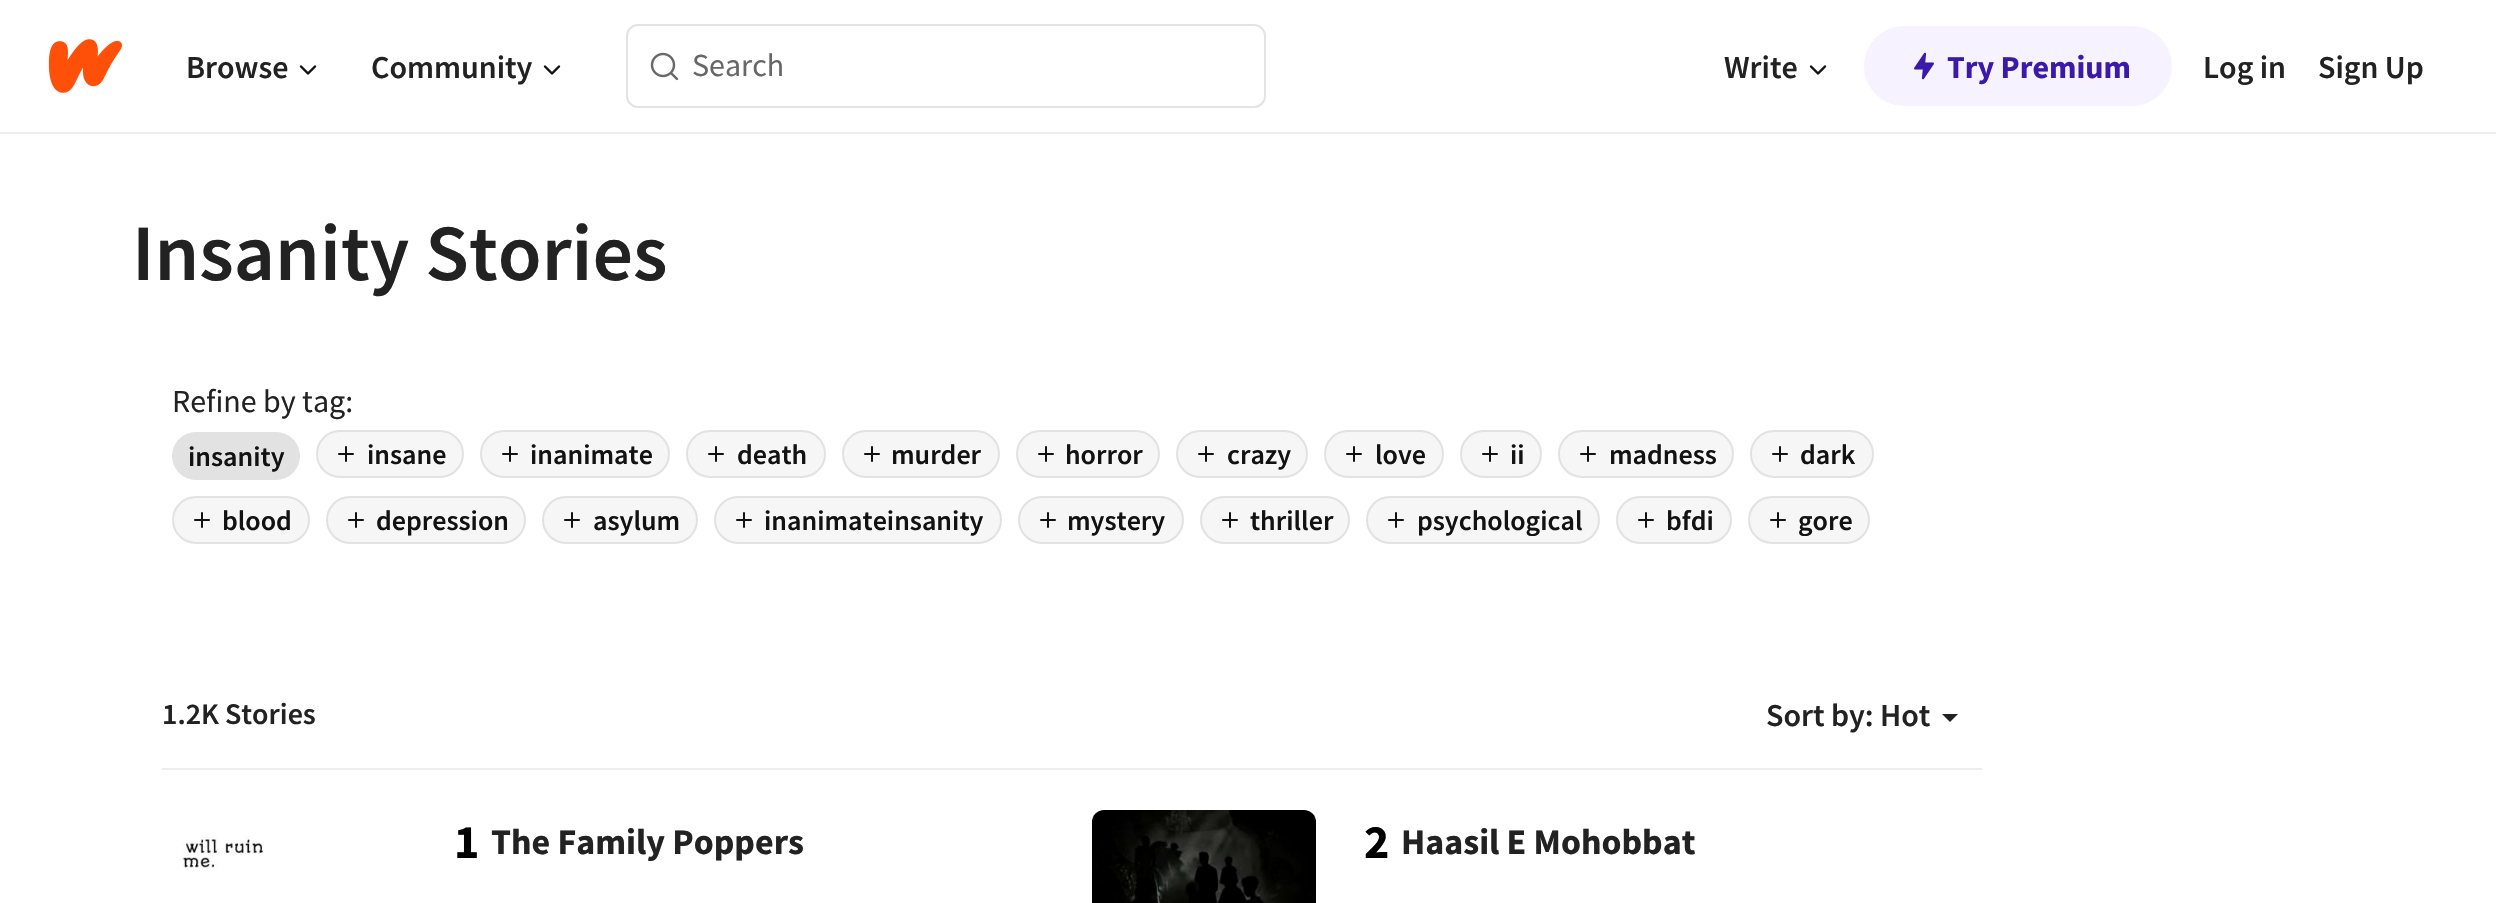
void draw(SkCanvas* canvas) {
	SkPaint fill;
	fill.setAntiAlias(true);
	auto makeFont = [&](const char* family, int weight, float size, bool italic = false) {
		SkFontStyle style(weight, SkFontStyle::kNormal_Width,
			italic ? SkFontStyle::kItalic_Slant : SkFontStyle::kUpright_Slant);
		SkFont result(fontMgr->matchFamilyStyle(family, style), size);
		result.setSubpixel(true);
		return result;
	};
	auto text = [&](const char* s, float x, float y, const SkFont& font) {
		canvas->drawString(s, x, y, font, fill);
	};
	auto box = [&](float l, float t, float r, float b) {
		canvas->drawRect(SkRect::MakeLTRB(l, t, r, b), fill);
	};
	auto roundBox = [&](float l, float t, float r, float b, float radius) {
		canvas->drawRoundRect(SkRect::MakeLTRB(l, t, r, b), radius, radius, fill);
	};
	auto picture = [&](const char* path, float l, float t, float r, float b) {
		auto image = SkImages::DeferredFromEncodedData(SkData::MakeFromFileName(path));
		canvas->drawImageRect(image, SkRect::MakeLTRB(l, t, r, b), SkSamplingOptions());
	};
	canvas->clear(0xFFFFFFFF);
	fill.setColor(0xFFEEEEEE);
	box(0, 132, 2496, 134);
	picture("image0.png", 48, 39, 122, 93);
	picture("image1.png", 299, 65, 317, 75);
	picture("image1.png", 543, 65, 561, 75);
	fill.setStyle(SkPaint::kStroke_Style);
	fill.setStrokeWidth(2);
	fill.setColor(0xFFE3E3E3);
	canvas->drawRoundRect(SkRect::MakeLTRB(627, 25, 1265, 107), 11, 11, fill);
	picture("image2.png", 650, 52, 679, 81);
	picture("image1.png", 1809, 65, 1827, 75);
	fill.setStyle(SkPaint::kFill_Style);
	fill.setColor(0xFFF6F2FF);
	roundBox(1864, 26, 2172, 106, 40);
	picture("image3.png", 1914, 52, 1934, 80);
	fill.setColor(0xFFE2E2E2);
	roundBox(172, 432, 300, 480, 24);
	fill.setColor(0xFFF6F6F6);
	canvas->drawRoundRect(SkRect::MakeLTRB(317, 431, 463, 477), 23, 23, fill);
	fill.setStyle(SkPaint::kStroke_Style);
	fill.setColor(0xFFE2E2E2);
	canvas->drawRoundRect(SkRect::MakeLTRB(317, 431, 463, 477), 23, 23, fill);
	picture("image4.png", 338, 446, 354, 462);
	fill.setStyle(SkPaint::kFill_Style);
	fill.setColor(0xFFF6F6F6);
	canvas->drawRoundRect(SkRect::MakeLTRB(481, 431, 669, 477), 23, 23, fill);
	fill.setStyle(SkPaint::kStroke_Style);
	fill.setColor(0xFFE2E2E2);
	canvas->drawRoundRect(SkRect::MakeLTRB(481, 431, 669, 477), 23, 23, fill);
	picture("image4.png", 502, 446, 518, 462);
	fill.setStyle(SkPaint::kFill_Style);
	fill.setColor(0xFFF6F6F6);
	canvas->drawRoundRect(SkRect::MakeLTRB(687, 431, 825, 477), 23, 23, fill);
	fill.setStyle(SkPaint::kStroke_Style);
	fill.setColor(0xFFE2E2E2);
	canvas->drawRoundRect(SkRect::MakeLTRB(687, 431, 825, 477), 23, 23, fill);
	picture("image4.png", 708, 446, 724, 462);
	fill.setStyle(SkPaint::kFill_Style);
	fill.setColor(0xFFF6F6F6);
	canvas->drawRoundRect(SkRect::MakeLTRB(843, 431, 999, 477), 23, 23, fill);
	fill.setStyle(SkPaint::kStroke_Style);
	fill.setColor(0xFFE2E2E2);
	canvas->drawRoundRect(SkRect::MakeLTRB(843, 431, 999, 477), 23, 23, fill);
	picture("image4.png", 864, 446, 880, 462);
	fill.setStyle(SkPaint::kFill_Style);
	fill.setColor(0xFFF6F6F6);
	canvas->drawRoundRect(SkRect::MakeLTRB(1017, 431, 1159, 477), 23, 23, fill);
	fill.setStyle(SkPaint::kStroke_Style);
	fill.setColor(0xFFE2E2E2);
	canvas->drawRoundRect(SkRect::MakeLTRB(1017, 431, 1159, 477), 23, 23, fill);
	picture("image4.png", 1038, 446, 1054, 462);
	fill.setStyle(SkPaint::kFill_Style);
	fill.setColor(0xFFF6F6F6);
	canvas->drawRoundRect(SkRect::MakeLTRB(1177, 431, 1307, 477), 23, 23, fill);
	fill.setStyle(SkPaint::kStroke_Style);
	fill.setColor(0xFFE2E2E2);
	canvas->drawRoundRect(SkRect::MakeLTRB(1177, 431, 1307, 477), 23, 23, fill);
	picture("image4.png", 1198, 446, 1214, 462);
	fill.setStyle(SkPaint::kFill_Style);
	fill.setColor(0xFFF6F6F6);
	canvas->drawRoundRect(SkRect::MakeLTRB(1325, 431, 1443, 477), 23, 23, fill);
	fill.setStyle(SkPaint::kStroke_Style);
	fill.setColor(0xFFE2E2E2);
	canvas->drawRoundRect(SkRect::MakeLTRB(1325, 431, 1443, 477), 23, 23, fill);
	picture("image4.png", 1346, 446, 1362, 462);
	fill.setStyle(SkPaint::kFill_Style);
	fill.setColor(0xFFF6F6F6);
	canvas->drawRoundRect(SkRect::MakeLTRB(1461, 431, 1541, 477), 23, 23, fill);
	fill.setStyle(SkPaint::kStroke_Style);
	fill.setColor(0xFFE2E2E2);
	canvas->drawRoundRect(SkRect::MakeLTRB(1461, 431, 1541, 477), 23, 23, fill);
	picture("image4.png", 1482, 446, 1498, 462);
	fill.setStyle(SkPaint::kFill_Style);
	fill.setColor(0xFFF6F6F6);
	canvas->drawRoundRect(SkRect::MakeLTRB(1559, 431, 1733, 477), 23, 23, fill);
	fill.setStyle(SkPaint::kStroke_Style);
	fill.setColor(0xFFE2E2E2);
	canvas->drawRoundRect(SkRect::MakeLTRB(1559, 431, 1733, 477), 23, 23, fill);
	picture("image4.png", 1580, 446, 1596, 462);
	fill.setStyle(SkPaint::kFill_Style);
	fill.setColor(0xFFF6F6F6);
	canvas->drawRoundRect(SkRect::MakeLTRB(1751, 431, 1873, 477), 23, 23, fill);
	fill.setStyle(SkPaint::kStroke_Style);
	fill.setColor(0xFFE2E2E2);
	canvas->drawRoundRect(SkRect::MakeLTRB(1751, 431, 1873, 477), 23, 23, fill);
	picture("image4.png", 1772, 446, 1788, 462);
	fill.setStyle(SkPaint::kFill_Style);
	fill.setColor(0xFFF6F6F6);
	canvas->drawRoundRect(SkRect::MakeLTRB(173, 497, 309, 543), 23, 23, fill);
	fill.setStyle(SkPaint::kStroke_Style);
	fill.setColor(0xFFE2E2E2);
	canvas->drawRoundRect(SkRect::MakeLTRB(173, 497, 309, 543), 23, 23, fill);
	picture("image4.png", 194, 512, 210, 528);
	fill.setStyle(SkPaint::kFill_Style);
	fill.setColor(0xFFF6F6F6);
	canvas->drawRoundRect(SkRect::MakeLTRB(327, 497, 525, 543), 23, 23, fill);
	fill.setStyle(SkPaint::kStroke_Style);
	fill.setColor(0xFFE2E2E2);
	canvas->drawRoundRect(SkRect::MakeLTRB(327, 497, 525, 543), 23, 23, fill);
	picture("image4.png", 348, 512, 364, 528);
	fill.setStyle(SkPaint::kFill_Style);
	fill.setColor(0xFFF6F6F6);
	canvas->drawRoundRect(SkRect::MakeLTRB(543, 497, 697, 543), 23, 23, fill);
	fill.setStyle(SkPaint::kStroke_Style);
	fill.setColor(0xFFE2E2E2);
	canvas->drawRoundRect(SkRect::MakeLTRB(543, 497, 697, 543), 23, 23, fill);
	picture("image4.png", 564, 512, 580, 528);
	fill.setStyle(SkPaint::kFill_Style);
	fill.setColor(0xFFF6F6F6);
	canvas->drawRoundRect(SkRect::MakeLTRB(715, 497, 1001, 543), 23, 23, fill);
	fill.setStyle(SkPaint::kStroke_Style);
	fill.setColor(0xFFE2E2E2);
	canvas->drawRoundRect(SkRect::MakeLTRB(715, 497, 1001, 543), 23, 23, fill);
	picture("image4.png", 736, 512, 752, 528);
	fill.setStyle(SkPaint::kFill_Style);
	fill.setColor(0xFFF6F6F6);
	canvas->drawRoundRect(SkRect::MakeLTRB(1019, 497, 1183, 543), 23, 23, fill);
	fill.setStyle(SkPaint::kStroke_Style);
	fill.setColor(0xFFE2E2E2);
	canvas->drawRoundRect(SkRect::MakeLTRB(1019, 497, 1183, 543), 23, 23, fill);
	picture("image4.png", 1040, 512, 1056, 528);
	fill.setStyle(SkPaint::kFill_Style);
	fill.setColor(0xFFF6F6F6);
	canvas->drawRoundRect(SkRect::MakeLTRB(1201, 497, 1349, 543), 23, 23, fill);
	fill.setStyle(SkPaint::kStroke_Style);
	fill.setColor(0xFFE2E2E2);
	canvas->drawRoundRect(SkRect::MakeLTRB(1201, 497, 1349, 543), 23, 23, fill);
	picture("image4.png", 1222, 512, 1238, 528);
	fill.setStyle(SkPaint::kFill_Style);
	fill.setColor(0xFFF6F6F6);
	canvas->drawRoundRect(SkRect::MakeLTRB(1367, 497, 1599, 543), 23, 23, fill);
	fill.setStyle(SkPaint::kStroke_Style);
	fill.setColor(0xFFE2E2E2);
	canvas->drawRoundRect(SkRect::MakeLTRB(1367, 497, 1599, 543), 23, 23, fill);
	picture("image4.png", 1388, 512, 1404, 528);
	fill.setStyle(SkPaint::kFill_Style);
	fill.setColor(0xFFF6F6F6);
	canvas->drawRoundRect(SkRect::MakeLTRB(1617, 497, 1731, 543), 23, 23, fill);
	fill.setStyle(SkPaint::kStroke_Style);
	fill.setColor(0xFFE2E2E2);
	canvas->drawRoundRect(SkRect::MakeLTRB(1617, 497, 1731, 543), 23, 23, fill);
	picture("image4.png", 1638, 512, 1654, 528);
	fill.setStyle(SkPaint::kFill_Style);
	fill.setColor(0xFFF6F6F6);
	canvas->drawRoundRect(SkRect::MakeLTRB(1749, 497, 1869, 543), 23, 23, fill);
	fill.setStyle(SkPaint::kStroke_Style);
	fill.setColor(0xFFE2E2E2);
	canvas->drawRoundRect(SkRect::MakeLTRB(1749, 497, 1869, 543), 23, 23, fill);
	picture("image4.png", 1770, 512, 1786, 528);
	fill.setStyle(SkPaint::kFill_Style);
	fill.setColor(0xFFEEEEEE);
	box(162, 768, 1982, 770);
	fill.setColor(0xFF222222);
	canvas->drawPath(SkPathBuilder().moveTo(1942, 714).lineTo(1958, 714).lineTo(1950, 722).close().detach(), fill);
	picture("image5.png", 182, 835, 264, 868);
	picture("image6.png", 1092, 810, 1316, 903);
	auto font1 = makeFont("Source Sans Pro", 600, 32);
	text("Browse", 186, 78, font1);
	text("Community", 371, 78, font1);
	auto font2 = makeFont("Source Sans Pro", 400, 32);
	fill.setColor(0xFF676767);
	text("Search", 692, 76, font2);
	fill.setColor(0xFF222222);
	text("Write", 1724, 78, font1);
	auto font3 = makeFont("Source Sans Pro", 700, 32);
	fill.setColor(0xFF3B19A9);
	text("Try Premium", 1947, 78, font3);
	fill.setColor(0xFF222222);
	text("Log in", 2203, 78, font1);
	text("Sign Up", 2318, 78, font1);
	auto font4 = makeFont("Source Sans Pro", 600, 80);
	text("Insanity Stories", 132, 280, font4);
	text("Refine by tag:", 172, 412, font2);
	auto font5 = makeFont("Source Sans Pro", 600, 28);
	fill.setColor(0xFF121212);
	text("insanity", 188, 466, font5);
	text("insane", 367, 464, font5);
	text("inanimate", 530, 464, font5);
	text("death", 737, 464, font5);
	text("murder", 891, 464, font5);
	text("horror", 1065, 464, font5);
	text("crazy", 1227, 464, font5);
	text("love", 1375, 464, font5);
	text("ii", 1510, 464, font5);
	text("madness", 1609, 464, font5);
	text("dark", 1800, 464, font5);
	text("blood", 222, 530, font5);
	text("depression", 376, 530, font5);
	text("asylum", 593, 530, font5);
	text("inanimateinsanity", 764, 530, font5);
	text("mystery", 1067, 530, font5);
	text("thriller", 1250, 530, font5);
	text("psychological", 1417, 530, font5);
	text("bfdi", 1666, 530, font5);
	text("gore", 1798, 530, font5);
	auto font6 = makeFont("Source Sans Pro", 600, 30);
	fill.setColor(0xFF222222);
	text("1.2K Stories", 162, 724, font6);
	text("Sort by: Hot", 1766, 726, font1);
	auto font7 = makeFont("Source Sans Pro", 700, 48);
	fill.setColor(0xFF000000);
	text("1", 454, 858, font7);
	auto font8 = makeFont("Source Sans Pro", 700, 36);
	fill.setColor(0xFF222222);
	text("The Family Poppers", 491, 854, font8);
	fill.setColor(0xFF000000);
	text("2", 1364, 858, font7);
	fill.setColor(0xFF222222);
	text("Haasil E Mohobbat", 1401, 854, font8);
}
